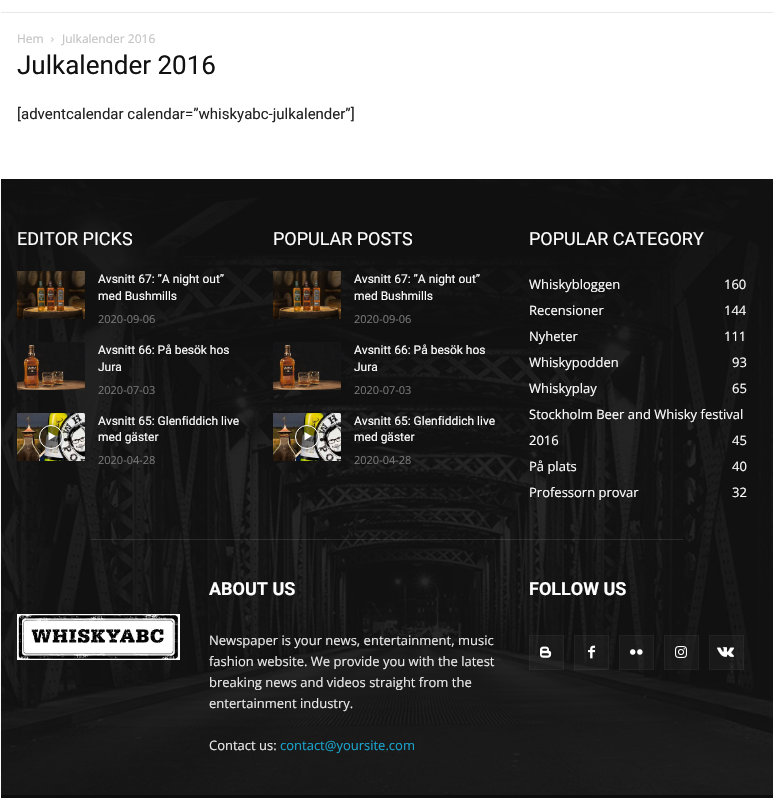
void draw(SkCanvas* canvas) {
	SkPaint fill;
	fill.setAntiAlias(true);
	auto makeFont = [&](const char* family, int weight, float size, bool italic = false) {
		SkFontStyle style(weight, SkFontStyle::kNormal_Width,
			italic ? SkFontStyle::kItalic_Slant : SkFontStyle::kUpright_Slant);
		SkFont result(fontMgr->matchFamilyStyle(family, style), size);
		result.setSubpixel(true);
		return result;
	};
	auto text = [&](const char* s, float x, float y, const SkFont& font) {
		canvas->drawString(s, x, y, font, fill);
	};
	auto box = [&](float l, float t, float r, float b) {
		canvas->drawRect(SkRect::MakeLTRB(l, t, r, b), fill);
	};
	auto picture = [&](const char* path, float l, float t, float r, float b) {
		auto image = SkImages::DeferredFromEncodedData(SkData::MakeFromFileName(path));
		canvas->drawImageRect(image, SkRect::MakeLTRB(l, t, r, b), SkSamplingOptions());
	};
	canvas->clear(0xFFFFFFFF);
	fill.setColor(0xFFE8E8E8);
	box(1, 12, 773, 13);
	picture("image0.png", 51, 37, 54, 42);
	fill.setColor(0xFF111111);
	box(1, 179, 773, 795);
	picture("image1.png", 0, 179, 773, 795);
	picture("image2.png", 17, 271, 85, 319);
	picture("image3.png", 17, 342, 85, 390);
	picture("image4.png", 17, 413, 85, 461);
	canvas->save();
	canvas->clipPath(SkPathBuilder(SkPathFillType::kEvenOdd).moveTo(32, 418).lineTo(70, 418).lineTo(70, 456).lineTo(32, 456).close().moveTo(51, 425).cubicTo(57.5f, 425, 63, 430.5f, 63, 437).cubicTo(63, 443.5f, 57.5f, 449, 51, 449).cubicTo(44.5f, 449, 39, 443.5f, 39, 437).cubicTo(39, 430.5f, 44.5f, 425, 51, 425).close().detach(), true);
	fill.setColor(0x66000000);
	fill.setMaskFilter(SkMaskFilter::MakeBlur(kNormal_SkBlurStyle, 2));
	canvas->drawRoundRect(SkRect::MakeLTRB(39, 425, 63, 449), 12, 12, fill);
	fill.setMaskFilter(nullptr);
	canvas->restore();
	fill.setColor(0x7A000000);
	canvas->drawCircle(51, 437, 11.5f, fill);
	fill.setStyle(SkPaint::kStroke_Style);
	fill.setStrokeWidth(1);
	fill.setColor(0xFFFFFFFF);
	canvas->drawCircle(51, 437, 11.5f, fill);
	fill.setStyle(SkPaint::kFill_Style);
	canvas->drawPath(SkPathBuilder().moveTo(48.5f, 432).lineTo(48.5f, 440.5f).lineTo(55.5f, 436).close().detach(), fill);
	picture("image2.png", 273, 271, 341, 319);
	picture("image3.png", 273, 342, 341, 390);
	picture("image4.png", 273, 413, 341, 461);
	canvas->save();
	canvas->clipPath(SkPathBuilder(SkPathFillType::kEvenOdd).moveTo(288, 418).lineTo(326, 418).lineTo(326, 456).lineTo(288, 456).close().moveTo(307, 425).cubicTo(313.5f, 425, 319, 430.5f, 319, 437).cubicTo(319, 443.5f, 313.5f, 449, 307, 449).cubicTo(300.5f, 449, 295, 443.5f, 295, 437).cubicTo(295, 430.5f, 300.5f, 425, 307, 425).close().detach(), true);
	fill.setColor(0x66000000);
	fill.setMaskFilter(SkMaskFilter::MakeBlur(kNormal_SkBlurStyle, 2));
	canvas->drawRoundRect(SkRect::MakeLTRB(295, 425, 319, 449), 12, 12, fill);
	fill.setMaskFilter(nullptr);
	canvas->restore();
	fill.setColor(0x7A000000);
	canvas->drawCircle(307, 437, 11.5f, fill);
	fill.setStyle(SkPaint::kStroke_Style);
	fill.setColor(0xFFFFFFFF);
	canvas->drawCircle(307, 437, 11.5f, fill);
	fill.setStyle(SkPaint::kFill_Style);
	canvas->drawPath(SkPathBuilder().moveTo(304.5f, 432).lineTo(304.5f, 440.5f).lineTo(311.5f, 436).close().detach(), fill);
	fill.setColor(0x1AFFFFFF);
	box(91, 539, 683, 540);
	fill.setColor(0x08FFFFFF);
	box(529, 635, 564, 670);
	fill.setStyle(SkPaint::kStroke_Style);
	canvas->drawRect(SkRect::MakeLTRB(529.5f, 635.5f, 563.5f, 669.5f), fill);
	picture("image5.png", 540, 646, 552, 658);
	fill.setStyle(SkPaint::kFill_Style);
	box(574, 635, 609, 670);
	fill.setStyle(SkPaint::kStroke_Style);
	canvas->drawRect(SkRect::MakeLTRB(574.5f, 635.5f, 608.5f, 669.5f), fill);
	picture("image6.png", 588, 645, 595, 659);
	fill.setStyle(SkPaint::kFill_Style);
	box(619, 635, 654, 670);
	fill.setStyle(SkPaint::kStroke_Style);
	canvas->drawRect(SkRect::MakeLTRB(619.5f, 635.5f, 653.5f, 669.5f), fill);
	picture("image7.png", 630, 649, 643, 655);
	fill.setStyle(SkPaint::kFill_Style);
	box(664, 635, 699, 670);
	fill.setStyle(SkPaint::kStroke_Style);
	canvas->drawRect(SkRect::MakeLTRB(664.5f, 635.5f, 698.5f, 669.5f), fill);
	picture("image8.png", 675, 646, 687, 658);
	fill.setStyle(SkPaint::kFill_Style);
	box(709, 635, 744, 670);
	fill.setStyle(SkPaint::kStroke_Style);
	canvas->drawRect(SkRect::MakeLTRB(709.5f, 635.5f, 743.5f, 669.5f), fill);
	picture("image9.png", 717, 647, 734, 657);
	picture("image10.png", 17, 614, 180, 660);
	fill.setStyle(SkPaint::kFill_Style);
	fill.setColor(0xFF0D0D0D);
	box(1, 795, 773, 798);
	auto font1 = makeFont("Open Sans", 400, 12);
	fill.setColor(0xFFC3C3C3);
	text("Hem", 17, 43, font1);
	text("Julkalender 2016", 62, 43, font1);
	auto font2 = makeFont("Roboto", 400, 26);
	fill.setColor(0xFF111111);
	text("Julkalender 2016", 17, 74, font2);
	auto font3 = makeFont("Roboto", 400, 15);
	fill.setColor(0xFF222222);
	text("[adventcalendar calendar=”whiskyabc-julkalender”]", 17, 119, font3);
	auto font4 = makeFont("Roboto", 400, 18);
	fill.setColor(0xFFFFFFFF);
	text("EDITOR PICKS", 17, 245, font4);
	auto font5 = makeFont("Roboto", 400, 12);
	text("Avsnitt 67: ”A night out”", 98, 283, font5);
	text("med Bushmills", 98, 300, font5);
	auto font6 = makeFont("Open Sans", 400, 11);
	fill.setColor(0xFF767676);
	text("2020-09-06", 98, 323, font6);
	fill.setColor(0xFFFFFFFF);
	text("Avsnitt 66: På besök hos", 98, 354, font5);
	text("Jura", 98, 371, font5);
	fill.setColor(0xFF767676);
	text("2020-07-03", 98, 394, font6);
	fill.setColor(0xFFFFFFFF);
	text("Avsnitt 65: Glenfiddich live", 98, 425, font5);
	text("med gäster", 98, 441, font5);
	fill.setColor(0xFF767676);
	text("2020-04-28", 98, 464, font6);
	fill.setColor(0xFFFFFFFF);
	text("POPULAR POSTS", 273, 245, font4);
	text("Avsnitt 67: ”A night out”", 354, 283, font5);
	text("med Bushmills", 354, 300, font5);
	fill.setColor(0xFF767676);
	text("2020-09-06", 354, 323, font6);
	fill.setColor(0xFFFFFFFF);
	text("Avsnitt 66: På besök hos", 354, 354, font5);
	text("Jura", 354, 371, font5);
	fill.setColor(0xFF767676);
	text("2020-07-03", 354, 394, font6);
	fill.setColor(0xFFFFFFFF);
	text("Avsnitt 65: Glenfiddich live", 354, 425, font5);
	text("med gäster", 354, 441, font5);
	fill.setColor(0xFF767676);
	text("2020-04-28", 354, 464, font6);
	fill.setColor(0xFFFFFFFF);
	text("POPULAR CATEGORY", 529, 245, font4);
	auto font7 = makeFont("Open Sans", 400, 13);
	text("Whiskybloggen", 529, 289, font7);
	text("160", 724, 289, font7);
	text("Recensioner", 529, 315, font7);
	text("144", 724, 315, font7);
	text("Nyheter", 529, 341, font7);
	text("111", 724, 341, font7);
	text("Whiskypodden", 529, 367, font7);
	text("93", 732, 367, font7);
	text("Whiskyplay", 529, 393, font7);
	text("65", 732, 393, font7);
	text("Stockholm Beer and Whisky festival", 529, 419, font7);
	text("2016", 529, 445, font7);
	text("45", 732, 445, font7);
	text("På plats", 529, 471, font7);
	text("40", 732, 471, font7);
	text("Professorn provar", 529, 497, font7);
	text("32", 732, 497, font7);
	auto font8 = makeFont("Roboto", 700, 18);
	text("ABOUT US", 209, 595, font8);
	fill.setColor(0xFFEAEAEA);
	text("Newspaper is your news, entertainment, music", 209, 645, font7);
	text("fashion website. We provide you with the latest", 209, 666, font7);
	text("breaking news and videos straight from the", 209, 687, font7);
	text("entertainment industry.", 209, 708, font7);
	text("Contact us:", 209, 750, font7);
	fill.setColor(0xFF1AA4CE);
	text("contact@yoursite.com", 280, 750, font7);
	fill.setColor(0xFFFFFFFF);
	text("FOLLOW US", 529, 595, font8);
}
